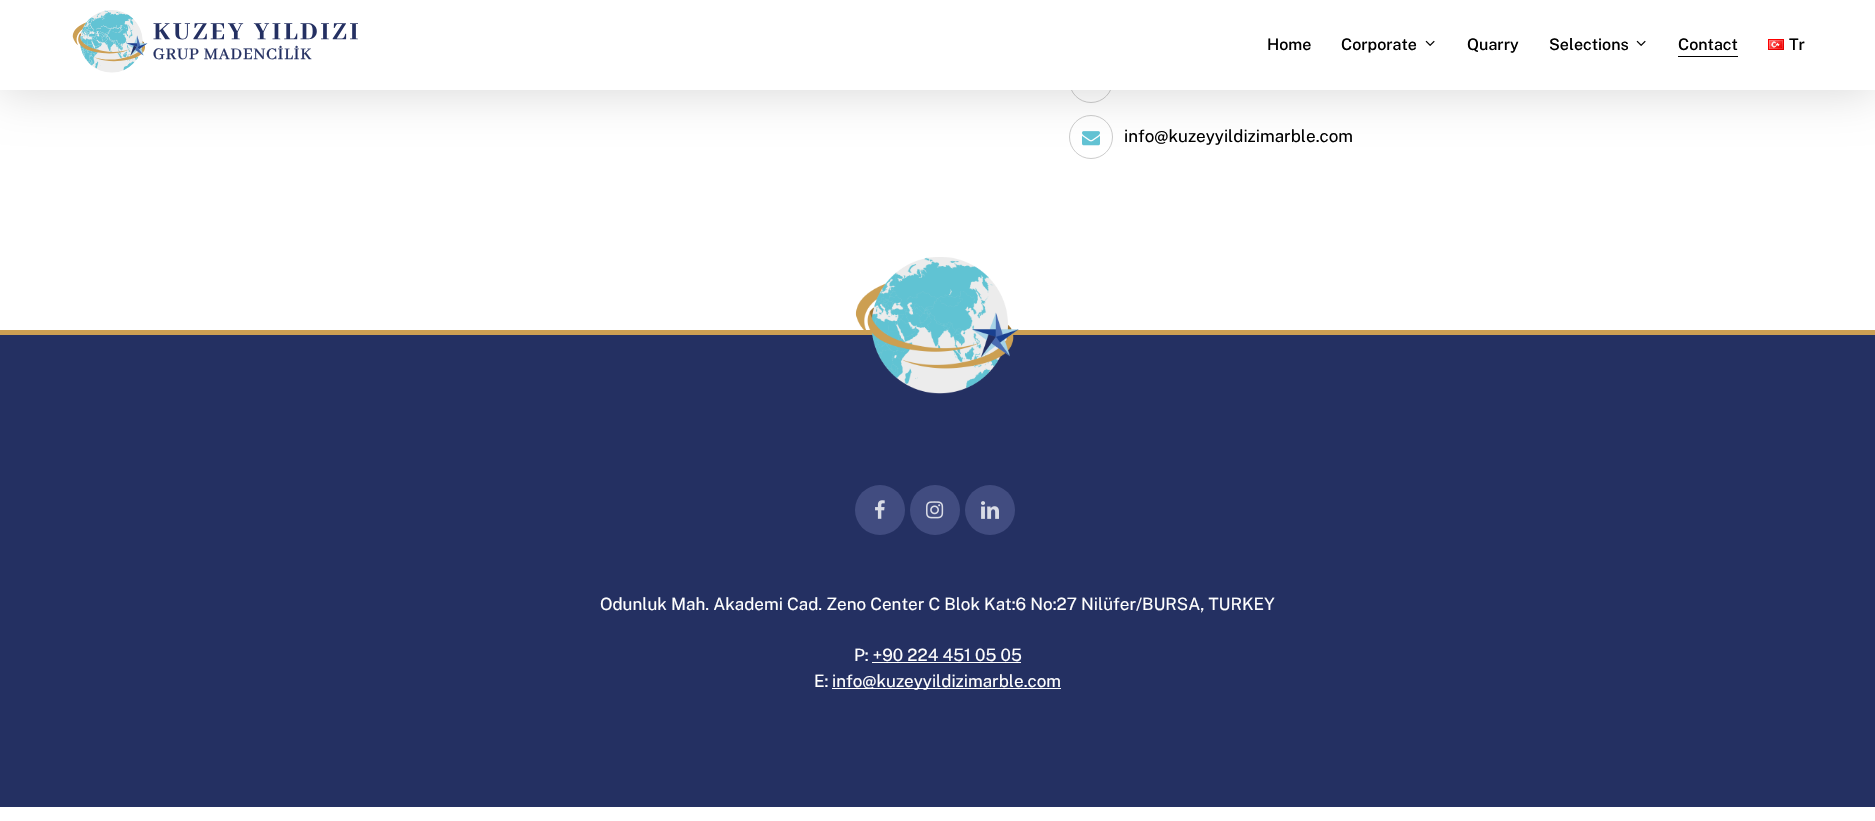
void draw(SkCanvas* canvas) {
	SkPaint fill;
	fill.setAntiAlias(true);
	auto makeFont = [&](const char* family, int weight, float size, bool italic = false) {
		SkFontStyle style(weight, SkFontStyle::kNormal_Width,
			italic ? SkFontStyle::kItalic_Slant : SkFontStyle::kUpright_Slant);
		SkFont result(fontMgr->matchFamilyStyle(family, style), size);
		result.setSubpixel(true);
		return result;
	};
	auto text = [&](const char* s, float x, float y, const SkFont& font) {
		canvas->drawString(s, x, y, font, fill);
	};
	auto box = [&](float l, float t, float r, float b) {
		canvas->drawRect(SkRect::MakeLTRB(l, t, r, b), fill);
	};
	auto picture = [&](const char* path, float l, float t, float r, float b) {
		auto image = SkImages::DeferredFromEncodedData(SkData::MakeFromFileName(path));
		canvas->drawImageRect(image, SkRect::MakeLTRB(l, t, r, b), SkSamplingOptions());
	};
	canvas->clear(0xFFFFFFFF);
	fill.setStyle(SkPaint::kStroke_Style);
	fill.setStrokeWidth(1);
	fill.setColor(0xFFCCCCCC);
	canvas->drawCircle(1091, 81, 21.5f, fill);
	canvas->drawCircle(1091, 137, 21.5f, fill);
	picture("image3.png", 1082, 131, 1100, 146);
	fill.setStyle(SkPaint::kFill_Style);
	fill.setColor(0x26000000);
	fill.setMaskFilter(SkMaskFilter::MakeBlur(kNormal_SkBlurStyle, 22.5f));
	canvas->drawRect(SkRect::MakeLTRB(0, 3, 1875, 93), fill);
	fill.setMaskFilter(nullptr);
	fill.setColor(0xFFFFFFFF);
	box(0, 0, 1875, 90);
	picture("image0.png", 72, 10, 358, 73);
	picture("image1.png", 1425, 40, 1435, 46);
	picture("image1.png", 1636, 40, 1646, 46);
	fill.setColor(0xFF000000);
	box(1678, 56, 1738, 57);
	picture("image2.png", 1768, 39, 1784, 50);
	fill.setColor(0xFFCC9F53);
	box(0, 330, 1875, 335);
	fill.setColor(0xFF243062);
	box(0, 335, 1875, 807);
	picture("image4.png", 855, 257, 1019, 394);
	fill.setColor(0xFF414C80);
	canvas->drawCircle(880, 510, 25, fill);
	picture("image5.png", 875, 500, 885, 519);
	canvas->drawCircle(935, 510, 25, fill);
	picture("image6.png", 926, 501, 944, 519);
	canvas->drawCircle(990, 510, 25, fill);
	picture("image7.png", 981, 501, 999, 519);
	fill.setColor(0xFFFFFFFF);
	box(872, 662, 1021, 663);
	box(832, 688, 1061, 689);
	auto font1 = makeFont("Public Sans", 500, 16);
	fill.setColor(0xFF000000);
	text("Home", 1267, 50, font1);
	text("Corporate", 1341, 50, font1);
	text("Quarry", 1467, 50, font1);
	text("Selections", 1549, 50, font1);
	text("Contact", 1678, 50, font1);
	text("Tr", 1789, 50, font1);
	auto font2 = makeFont("Public Sans", 400, 17);
	text("info@kuzeyyildizimarble.com", 1124, 142, font2);
	fill.setColor(0xFFFFFFFF);
	text("Odunluk Mah. Akademi Cad. Zeno Center C Blok Kat:6 No:27 Nilüfer/BURSA, TURKEY", 600, 610, font2);
	text("P: +90 224 451 05 05", 854, 661, font2);
	text("E:", 814, 687, font2);
	text("info@kuzeyyildizimarble.com", 832, 687, font2);
}
